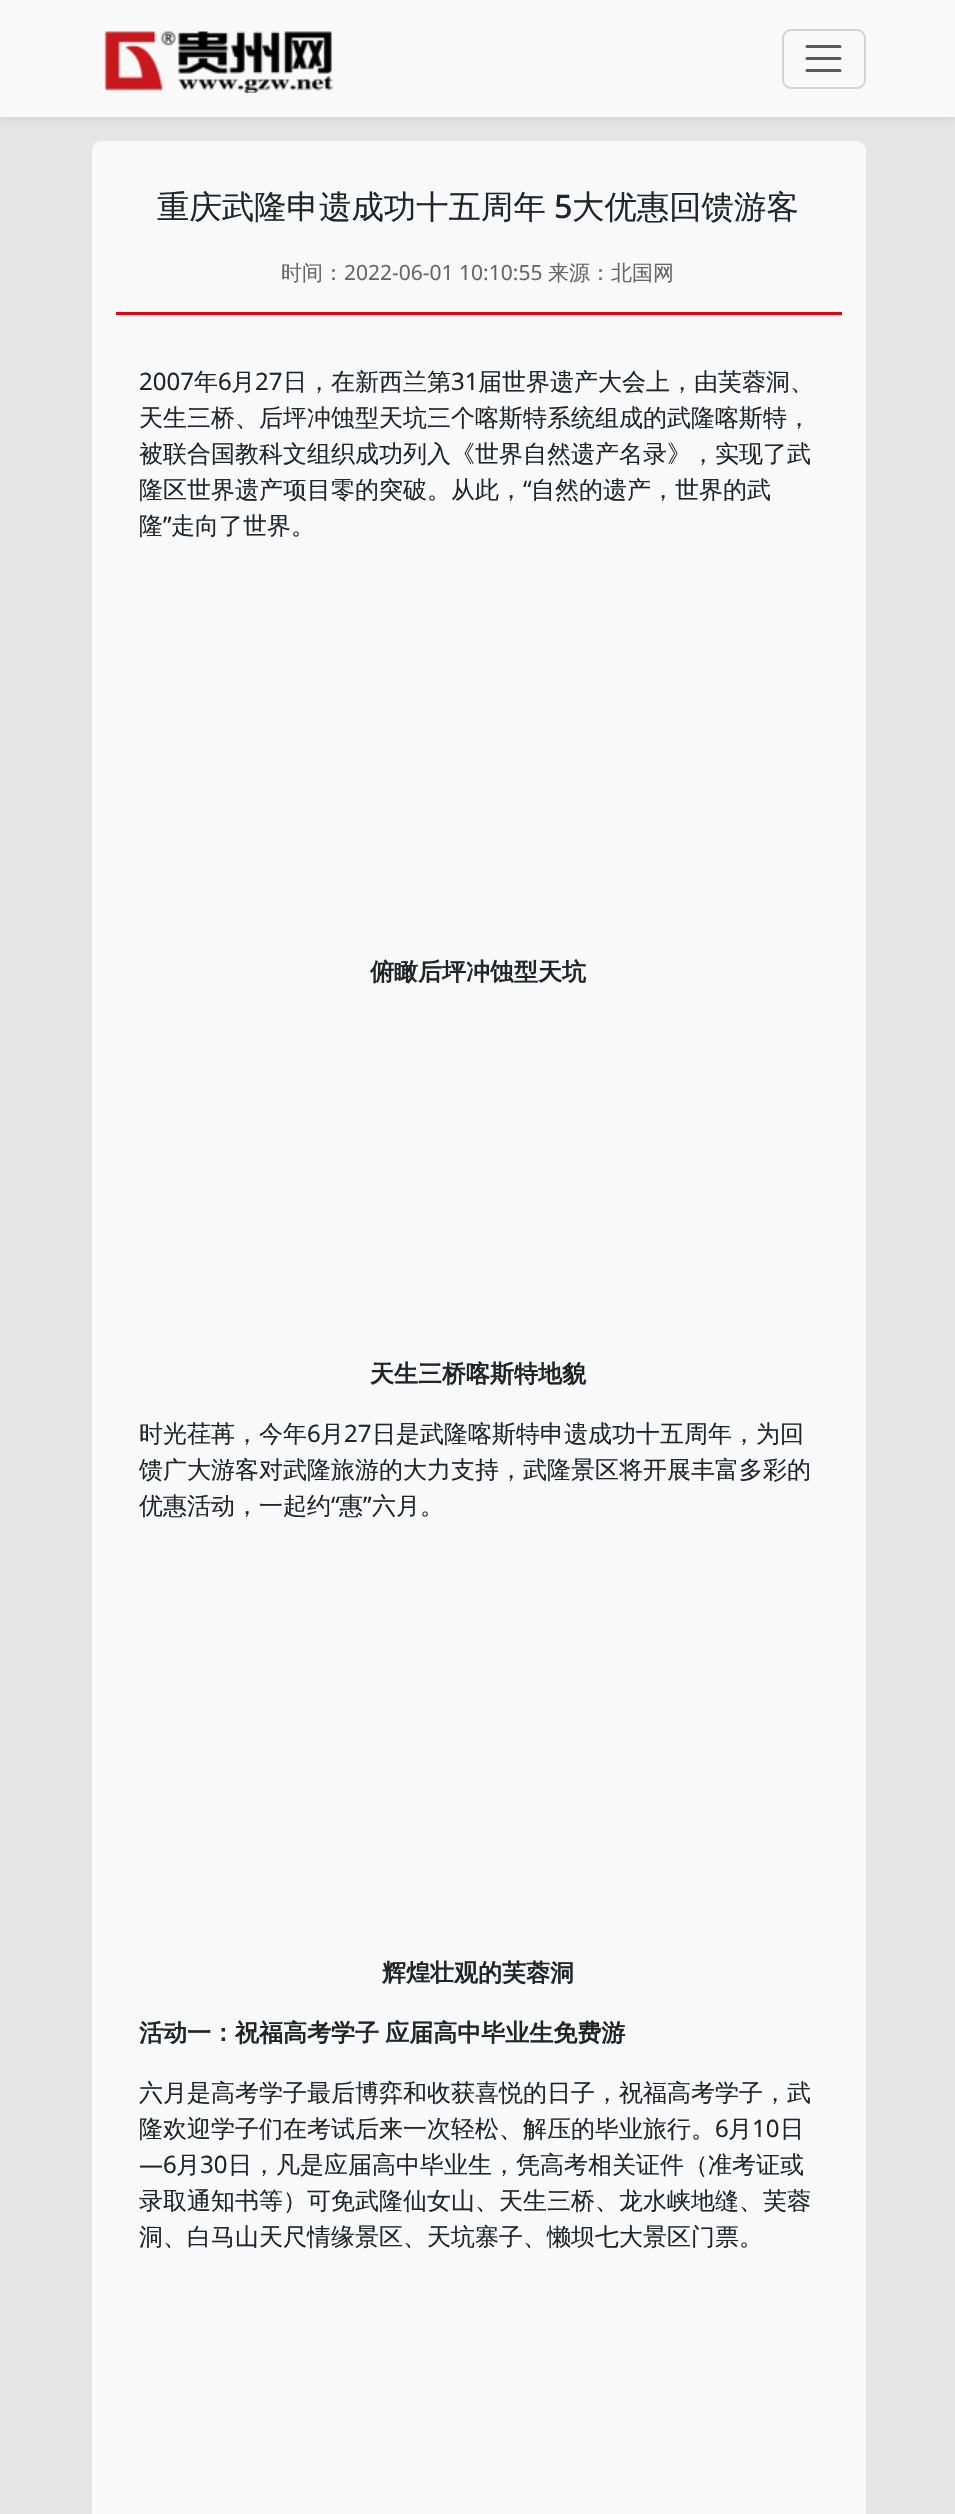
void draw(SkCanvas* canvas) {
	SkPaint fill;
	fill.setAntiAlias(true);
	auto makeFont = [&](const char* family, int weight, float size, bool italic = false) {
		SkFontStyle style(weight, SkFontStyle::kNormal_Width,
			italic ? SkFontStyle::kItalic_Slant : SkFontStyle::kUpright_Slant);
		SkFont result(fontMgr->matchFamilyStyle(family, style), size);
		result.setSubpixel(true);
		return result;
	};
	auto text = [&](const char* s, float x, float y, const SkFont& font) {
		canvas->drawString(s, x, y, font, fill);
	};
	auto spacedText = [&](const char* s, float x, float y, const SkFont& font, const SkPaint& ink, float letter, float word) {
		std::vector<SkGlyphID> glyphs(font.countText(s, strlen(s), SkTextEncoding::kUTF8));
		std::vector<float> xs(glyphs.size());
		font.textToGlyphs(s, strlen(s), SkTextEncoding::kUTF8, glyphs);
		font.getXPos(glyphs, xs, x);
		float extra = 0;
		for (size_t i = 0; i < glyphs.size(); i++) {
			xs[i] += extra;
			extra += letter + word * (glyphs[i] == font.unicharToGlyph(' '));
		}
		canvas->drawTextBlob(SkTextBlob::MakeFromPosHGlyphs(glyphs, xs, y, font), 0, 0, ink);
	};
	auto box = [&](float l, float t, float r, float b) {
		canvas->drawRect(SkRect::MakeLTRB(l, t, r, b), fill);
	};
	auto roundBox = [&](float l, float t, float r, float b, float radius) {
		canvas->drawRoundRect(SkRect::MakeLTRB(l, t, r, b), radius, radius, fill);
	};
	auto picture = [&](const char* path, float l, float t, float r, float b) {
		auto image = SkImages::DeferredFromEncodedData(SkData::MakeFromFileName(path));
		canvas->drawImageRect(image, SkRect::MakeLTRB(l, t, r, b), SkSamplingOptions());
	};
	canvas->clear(0xFFE5E5E5);
	fill.setColor(0x12000000);
	fill.setMaskFilter(SkMaskFilter::MakeBlur(kNormal_SkBlurStyle, 3));
	canvas->drawRect(SkRect::MakeLTRB(0, 3, 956, 120), fill);
	fill.setMaskFilter(nullptr);
	fill.setColor(0xFFF9F9F9);
	box(0, 0, 955, 117);
	picture("image0.png", 104, 31, 334, 93);
	fill.setStyle(SkPaint::kStroke_Style);
	fill.setStrokeWidth(2);
	fill.setColor(0xFFD4D4D4);
	canvas->drawRoundRect(SkRect::MakeLTRB(783, 30, 865, 88), 8, 8, fill);
	fill.setStrokeWidth(3);
	fill.setStrokeCap(SkPaint::kRound_Cap);
	fill.setColor(0xFF575A5D);
	canvas->drawPath(SkPathBuilder().moveTo(807, 46.5f).lineTo(840, 46.5f).moveTo(807, 58.5f).lineTo(840, 58.5f).moveTo(807, 70.5f).lineTo(840, 70.5f).detach(), fill);
	fill.setStyle(SkPaint::kFill_Style);
	fill.setColor(0xFFF9F9F9);
	roundBox(92, 141, 866, 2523, 9);
	fill.setColor(0xFFE50012);
	box(116, 312, 842, 315);
	auto font1 = makeFont("WenQuanYi Zen Hei", 500, 32.4f);
	fill.setColor(0xFF212529);
	text("重庆武隆申遗成功十五周年", 157, 218, font1);
	auto font2 = makeFont("Noto Sans", 500, 32.4f);
	text("5", 554, 218, font2);
	text("大优惠回馈游客", 572, 218, font1);
	auto font3 = makeFont("WenQuanYi Zen Hei", 500, 21);
	fill.setColor(0xFF666666);
	text("时间：", 281, 280, font3);
	auto font4 = makeFont("Noto Sans", 400, 21);
	text("2022-06-01 10:10:55", 344, 280, font4);
	text("来源：北国网", 548, 280, font3);
	auto font5 = makeFont("Noto Sans", 400, 24);
	fill.setColor(0xFF212529);
	text("2007", 139, 390, font5);
	auto font6 = makeFont("WenQuanYi Zen Hei", 500, 24);
	text("年", 194, 390, font6);
	text("6", 218, 390, font5);
	text("月", 231, 390, font6);
	text("27", 255, 390, font5);
	text("日，在新西兰第", 283, 390, font6);
	text("31", 451, 390, font5);
	text("届世界遗产大会上，由芙蓉洞、", 478, 390, font6);
	text("天生三桥、后坪冲蚀型天坑三个喀斯特系统组成的武隆喀斯特，", 139, 426, font6);
	text("被联合国教科文组织成功列入《世界自然遗产名录》，实现了武", 139, 462, font6);
	text("隆区世界遗产项目零的突破。从此，", 139, 498, font6);
	text("“", 523, 498, font5);
	text("自然的遗产，世界的武", 531, 498, font6);
	text("隆", 139, 534, font6);
	text("”", 163, 534, font5);
	text("走向了世界。", 171, 534, font6);
	auto font7 = makeFont("WenQuanYi Zen Hei", 700, 24);
	text("俯瞰后坪冲蚀型天坑", 370, 980, font7);
	text("天生三桥喀斯特地貌", 370, 1382, font7);
	text("时光荏苒，今年", 139, 1442, font6);
	text("6", 307, 1442, font5);
	text("月", 320, 1442, font6);
	text("27", 344, 1442, font5);
	text("日是武隆喀斯特申遗成功十五周年，为回", 372, 1442, font6);
	text("馈广大游客对武隆旅游的大力支持，武隆景区将开展丰富多彩的", 139, 1478, font6);
	text("优惠活动，一起约", 139, 1514, font6);
	text("“", 331, 1514, font5);
	text("惠", 339, 1514, font6);
	text("”", 363, 1514, font5);
	text("六月。", 372, 1514, font6);
	text("辉煌壮观的芙蓉洞", 382, 1981, font7);
	spacedText("活动一：祝福高考学子 应届高中毕业生免费游", 139, 2041, font7, fill, 0, -1);
	text("六月是高考学子最后博弈和收获喜悦的日子，祝福高考学子，武", 139, 2101, font6);
	text("隆欢迎学子们在考试后来一次轻松、解压的毕业旅行。", 139, 2137, font6);
	text("6", 715, 2137, font5);
	text("月", 728, 2137, font6);
	text("10", 752, 2137, font5);
	text("日", 780, 2137, font6);
	text("—6", 139, 2173, font5);
	text("月", 176, 2173, font6);
	text("30", 200, 2173, font5);
	text("日，凡是应届高中毕业生，凭高考相关证件（准考证或", 228, 2173, font6);
	text("录取通知书等）可免武隆仙女山、天生三桥、龙水峡地缝、芙蓉", 139, 2209, font6);
	text("洞、白马山天尺情缘景区、天坑寨子、懒坝七大景区门票。", 139, 2245, font6);
}
